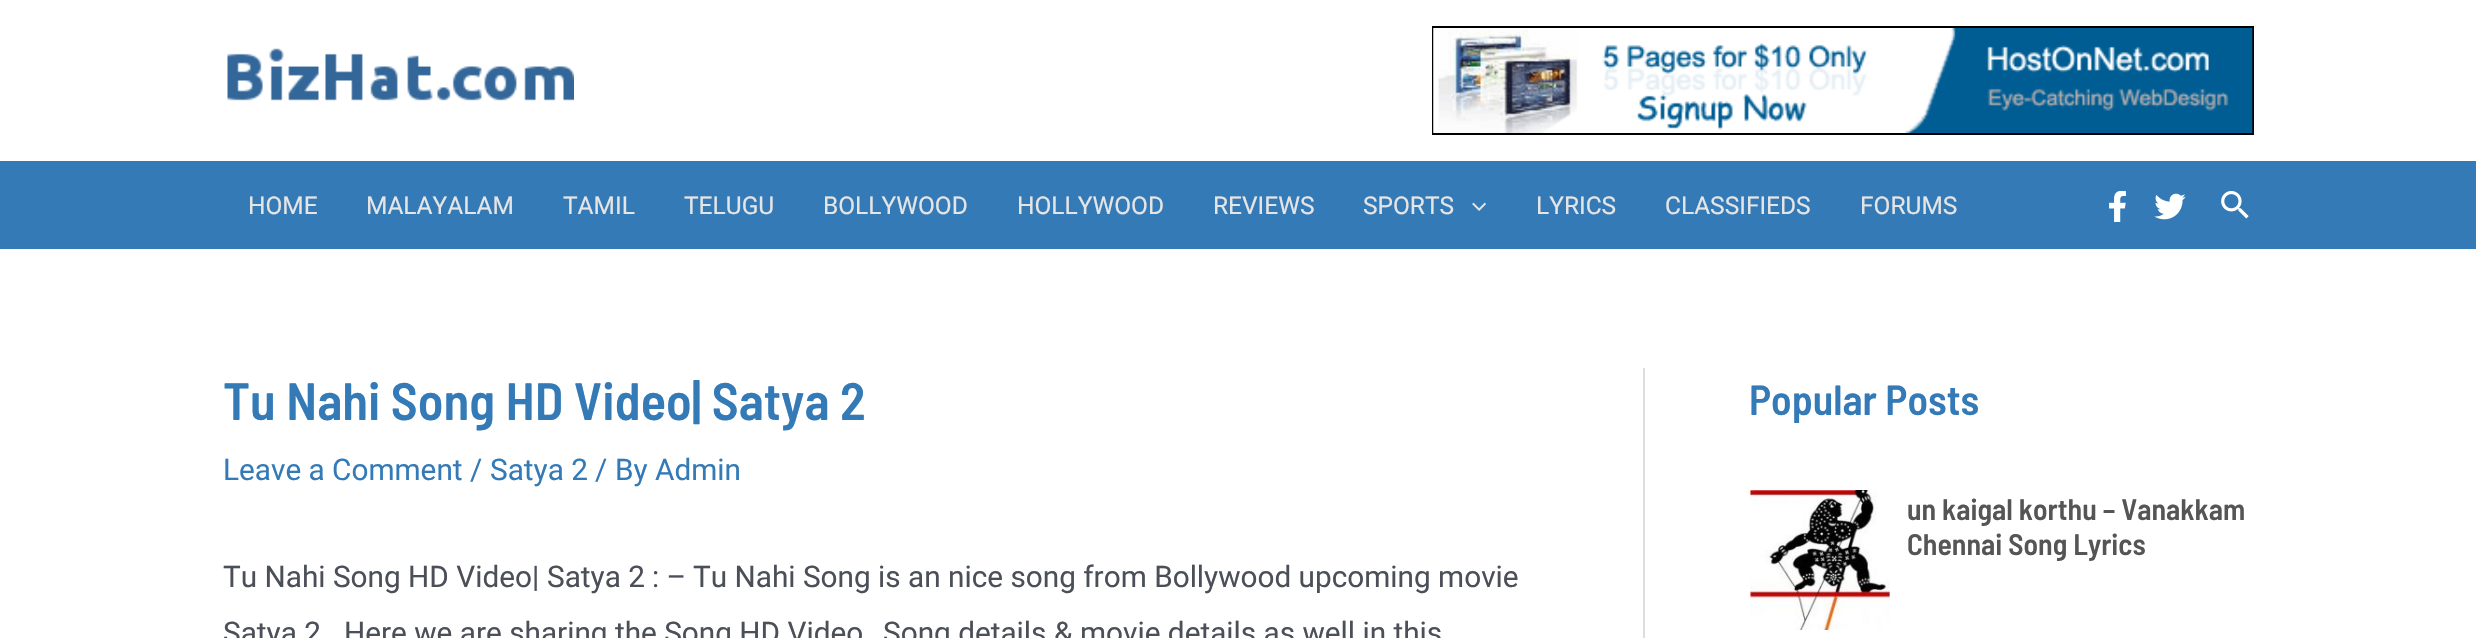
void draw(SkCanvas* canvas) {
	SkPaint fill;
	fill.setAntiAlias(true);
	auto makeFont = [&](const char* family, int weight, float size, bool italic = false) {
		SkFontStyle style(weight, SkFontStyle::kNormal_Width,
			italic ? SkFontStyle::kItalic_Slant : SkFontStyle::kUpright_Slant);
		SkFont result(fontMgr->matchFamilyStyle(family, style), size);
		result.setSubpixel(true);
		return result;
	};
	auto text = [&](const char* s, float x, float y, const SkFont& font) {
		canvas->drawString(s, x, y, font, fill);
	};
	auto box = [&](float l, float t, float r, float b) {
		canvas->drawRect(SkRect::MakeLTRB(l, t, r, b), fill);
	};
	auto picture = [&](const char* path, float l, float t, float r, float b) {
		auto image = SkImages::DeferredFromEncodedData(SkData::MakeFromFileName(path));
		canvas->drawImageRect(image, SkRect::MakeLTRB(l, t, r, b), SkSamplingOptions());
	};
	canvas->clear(0xFFFFFFFF);
	picture("image0.png", 227, 48, 574, 101);
	fill.setStyle(SkPaint::kStroke_Style);
	fill.setStrokeWidth(2);
	fill.setColor(0xFF000000);
	canvas->drawRect(SkRect::MakeLTRB(1433, 27, 2253, 134), fill);
	picture("image1.png", 1433, 28, 2253, 133);
	fill.setStyle(SkPaint::kFill_Style);
	fill.setColor(0xFF337AB7);
	box(0, 161, 2476, 249);
	picture("image2.png", 1472, 202, 1486, 211);
	picture("image3.png", 2109, 191, 2126, 222);
	picture("image4.png", 2154, 193, 2186, 220);
	picture("image5.png", 2221, 191, 2249, 219);
	fill.setColor(0xFFDDDDDD);
	box(1643, 368, 1645, 638);
	picture("image6.png", 1750, 490, 1890, 630);
	auto font1 = makeFont("Roboto", 400, 24.5f);
	fill.setColor(0xFFE5E5E5);
	text("HOME", 248, 214, font1);
	text("MALAYALAM", 366, 214, font1);
	text("TAMIL", 563, 214, font1);
	text("TELUGU", 684, 214, font1);
	text("BOLLYWOOD", 823, 214, font1);
	text("HOLLYWOOD", 1017, 214, font1);
	text("REVIEWS", 1213, 214, font1);
	text("SPORTS", 1363, 214, font1);
	text("LYRICS", 1536, 214, font1);
	text("CLASSIFIEDS", 1665, 214, font1);
	text("FORUMS", 1860, 214, font1);
	auto font2 = makeFont("Barlow Semi Condensed", 600, 52.5f);
	fill.setColor(0xFF337AB7);
	text("Tu Nahi Song HD Video| Satya 2", 223, 420, font2);
	auto font3 = makeFont("Roboto", 400, 29.75f);
	text("Leave a Comment", 223, 480, font3);
	auto font4 = makeFont("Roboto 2", 400, 29.75f);
	text("/", 470, 480, font4);
	text("Satya 2", 490, 480, font3);
	text("/", 595, 480, font4);
	text("By Admin", 615, 480, font3);
	fill.setColor(0xFF4B4F58);
	text("Tu Nahi Song HD Video", 223, 587, font3);
	text("|", 532, 587, font4);
	text("Satya 2", 547, 587, font3);
	text(": –", 652, 587, font4);
	text("Tu Nahi Song is an nice song from Bollywood upcoming movie", 693, 587, font3);
	text("Satya 2", 223, 643, font3);
	text("Here we are sharing the Song HD Video", 344, 643, font3);
	text("Song details", 883, 643, font3);
	text("&", 1054, 643, font4);
	text("movie details as well in this", 1080, 643, font3);
	auto font5 = makeFont("Barlow Semi Condensed", 600, 42);
	fill.setColor(0xFF337AB7);
	text("Popular Posts", 1749, 415, font5);
	auto font6 = makeFont("Barlow Semi Condensed", 600, 29.75f);
	fill.setColor(0xFF555555);
	text("un kaigal korthu – Vanakkam", 1907, 520, font6);
	text("Chennai Song Lyrics", 1907, 555, font6);
}
